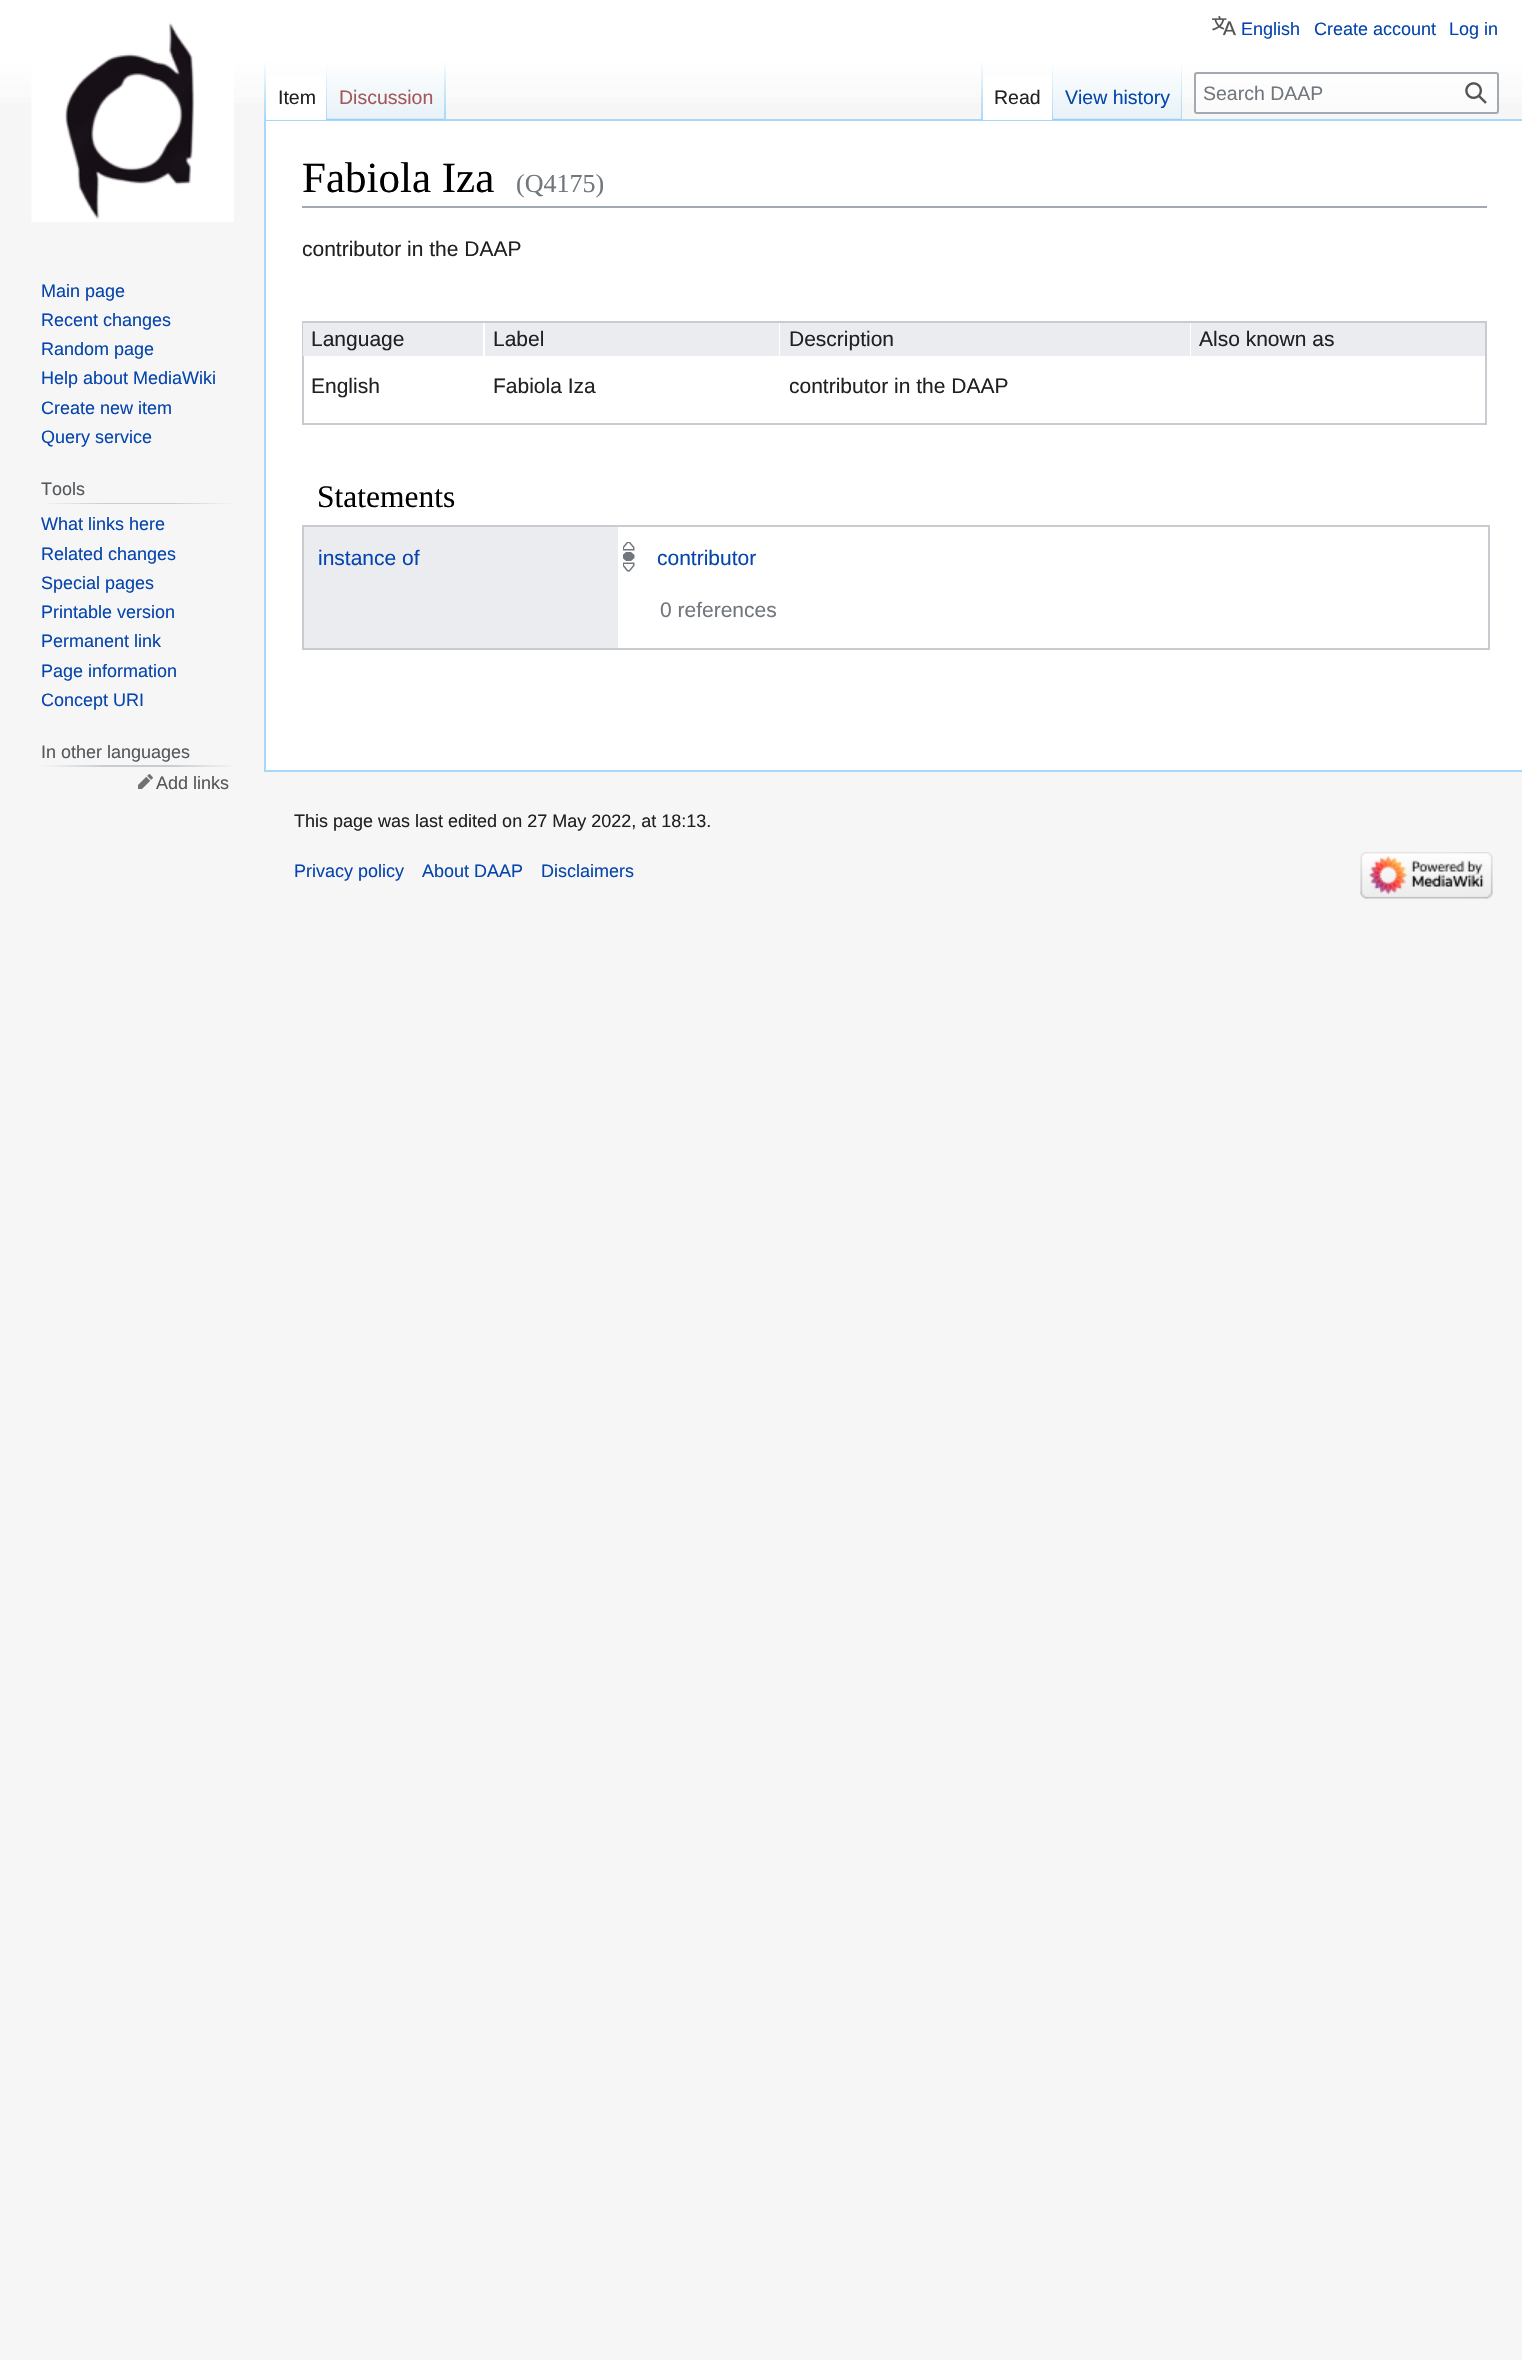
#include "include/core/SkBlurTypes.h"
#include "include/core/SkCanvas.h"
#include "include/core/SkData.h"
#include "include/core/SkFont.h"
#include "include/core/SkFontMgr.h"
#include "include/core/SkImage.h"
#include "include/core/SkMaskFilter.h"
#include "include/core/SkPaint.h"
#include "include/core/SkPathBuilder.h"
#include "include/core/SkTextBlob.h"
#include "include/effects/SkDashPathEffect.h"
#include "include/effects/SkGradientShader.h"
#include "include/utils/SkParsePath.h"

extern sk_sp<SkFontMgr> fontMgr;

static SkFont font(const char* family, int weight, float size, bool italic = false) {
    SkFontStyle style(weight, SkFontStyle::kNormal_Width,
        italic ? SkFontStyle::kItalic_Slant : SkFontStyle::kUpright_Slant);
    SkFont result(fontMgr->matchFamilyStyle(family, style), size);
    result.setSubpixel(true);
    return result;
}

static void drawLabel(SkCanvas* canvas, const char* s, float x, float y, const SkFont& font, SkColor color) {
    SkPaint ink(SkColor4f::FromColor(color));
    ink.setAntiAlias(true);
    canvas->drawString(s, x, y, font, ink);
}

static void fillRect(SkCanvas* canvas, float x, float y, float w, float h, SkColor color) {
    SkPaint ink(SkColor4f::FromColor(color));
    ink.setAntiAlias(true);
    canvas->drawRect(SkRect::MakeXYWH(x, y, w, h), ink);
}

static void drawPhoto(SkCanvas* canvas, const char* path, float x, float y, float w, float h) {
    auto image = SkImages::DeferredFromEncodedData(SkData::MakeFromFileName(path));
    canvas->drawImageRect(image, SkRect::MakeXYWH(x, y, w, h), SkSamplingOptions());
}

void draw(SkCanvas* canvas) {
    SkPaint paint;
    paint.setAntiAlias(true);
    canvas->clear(0xFFF6F6F6);
    {
        const SkColor colors[] = {0xFFFFFFFF, 0xFFF6F6F6};
        const float stops[] = {0.5f, 1};
        const SkPoint ends[] = {{761, 0}, {761, 120}};
        paint.setShader(SkGradientShader::MakeLinear(ends, colors, stops, 2, SkTileMode::kClamp));
        paint.setAlpha(255);
    }
    canvas->drawRect(SkRect::MakeXYWH(0, 0, 1522, 103), paint);
    drawPhoto(canvas, "assets/img1.png", 1212, 16, 24, 20);
    SkFont font1 = font("Liberation Sans", 400, 18);
    drawLabel(canvas, "English", 1241, 35, font1, 0xFF0645AD);
    drawLabel(canvas, "Create account", 1314, 35, font1, 0xFF0645AD);
    drawLabel(canvas, "Log in", 1449, 35, font1, 0xFF0645AD);
    fillRect(canvas, 264, 119, 1258, 2, 0xFFA7D7F9);
    fillRect(canvas, 264, 770, 1258, 2, 0xFFA7D7F9);
    fillRect(canvas, 264, 119, 2, 652, 0xFFA7D7F9);
    {
        const SkColor colors[] = {0x00A7D7F9, 0xFFA7D7F9};
        const float stops[] = {0, 1};
        const SkPoint ends[] = {{265, 60}, {265, 120}};
        paint.setShader(SkGradientShader::MakeLinear(ends, colors, stops, 2, SkTileMode::kClamp));
        paint.setAlpha(255);
    }
    canvas->drawRect(SkRect::MakeXYWH(264, 60, 2, 60), paint);
    fillRect(canvas, 266, 77, 60, 43, 0xFFFFFFFF);
    {
        const SkColor colors[] = {0xFFFFFFFF, 0xFFA7D7F9};
        const float stops[] = {0, 1};
        const SkPoint ends[] = {{326, 60}, {326, 120}};
        paint.setShader(SkGradientShader::MakeLinear(ends, colors, stops, 2, SkTileMode::kClamp));
        paint.setAlpha(255);
    }
    canvas->drawRect(SkRect::MakeXYWH(326, 60, 1, 60), paint);
    SkFont font2 = font("Liberation Sans", 400, 19.5f);
    drawLabel(canvas, "Item", 278, 104, font2, 0xFF202122);
    {
        const SkColor colors[] = {0xFF77C1F6, 0xFFE8F2F8, 0xFFFFFFFF};
        const float stops[] = {0, 0.03f, 1};
        const SkPoint ends[] = {{386, 120}, {386, 60}};
        paint.setShader(SkGradientShader::MakeLinear(ends, colors, stops, 3, SkTileMode::kClamp));
        paint.setAlpha(255);
    }
    canvas->drawRect(SkRect::MakeXYWH(327, 69, 119, 51), paint);
    {
        const SkColor colors[] = {0x00A7D7F9, 0xFFA7D7F9};
        const float stops[] = {0, 1};
        const SkPoint ends[] = {{445, 60}, {445, 120}};
        paint.setShader(SkGradientShader::MakeLinear(ends, colors, stops, 2, SkTileMode::kClamp));
        paint.setAlpha(255);
    }
    canvas->drawRect(SkRect::MakeXYWH(444, 60, 2, 60), paint);
    drawLabel(canvas, "Discussion", 339, 104, font2, 0xFFA55858);
    {
        const SkColor colors[] = {0x00A7D7F9, 0xFFA7D7F9};
        const float stops[] = {0, 1};
        const SkPoint ends[] = {{982, 60}, {982, 120}};
        paint.setShader(SkGradientShader::MakeLinear(ends, colors, stops, 2, SkTileMode::kClamp));
        paint.setAlpha(255);
    }
    canvas->drawRect(SkRect::MakeXYWH(981, 60, 2, 60), paint);
    fillRect(canvas, 983, 77, 69, 43, 0xFFFFFFFF);
    {
        const SkColor colors[] = {0xFFFFFFFF, 0xFFA7D7F9};
        const float stops[] = {0, 1};
        const SkPoint ends[] = {{1052, 60}, {1052, 120}};
        paint.setShader(SkGradientShader::MakeLinear(ends, colors, stops, 2, SkTileMode::kClamp));
        paint.setAlpha(255);
    }
    canvas->drawRect(SkRect::MakeXYWH(1052, 60, 1, 60), paint);
    drawLabel(canvas, "Read", 994, 104, font2, 0xFF202122);
    {
        const SkColor colors[] = {0xFF77C1F6, 0xFFE8F2F8, 0xFFFFFFFF};
        const float stops[] = {0, 0.03f, 1};
        const SkPoint ends[] = {{1118, 120}, {1118, 60}};
        paint.setShader(SkGradientShader::MakeLinear(ends, colors, stops, 3, SkTileMode::kClamp));
        paint.setAlpha(255);
    }
    canvas->drawRect(SkRect::MakeXYWH(1053, 69, 129, 51), paint);
    {
        const SkColor colors[] = {0x00A7D7F9, 0xFFA7D7F9};
        const float stops[] = {0, 1};
        const SkPoint ends[] = {{1181, 60}, {1181, 120}};
        paint.setShader(SkGradientShader::MakeLinear(ends, colors, stops, 2, SkTileMode::kClamp));
        paint.setAlpha(255);
    }
    canvas->drawRect(SkRect::MakeXYWH(1181, 60, 1, 60), paint);
    drawLabel(canvas, "View history", 1065, 104, font2, 0xFF0645AD);
    paint.setShader(nullptr);
    paint.setColor(0x80FFFFFF);
    canvas->drawRoundRect(SkRect::MakeXYWH(1195, 73, 303, 40), 2, 2, paint);
    paint.setStroke(true);
    paint.setStrokeWidth(2);
    paint.setColor(0xFFA2A9B1);
    canvas->drawRoundRect(SkRect::MakeXYWH(1195, 73, 303, 40), 2, 2, paint);
    drawLabel(canvas, "Search DAAP", 1203, 100, font2, 0xFF72777D);
    drawPhoto(canvas, "assets/img2.png", 1465, 82, 22, 22);
    drawPhoto(canvas, "assets/img3.png", 31, 22, 203, 200);
    drawLabel(canvas, "Main page", 41, 297, font1, 0xFF0645AD);
    drawLabel(canvas, "Recent changes", 41, 326, font1, 0xFF0645AD);
    drawLabel(canvas, "Random page", 41, 355, font1, 0xFF0645AD);
    drawLabel(canvas, "Help about MediaWiki", 41, 384, font1, 0xFF0645AD);
    drawLabel(canvas, "Create new item", 41, 414, font1, 0xFF0645AD);
    drawLabel(canvas, "Query service", 41, 443, font1, 0xFF0645AD);
    paint.setStroke(false);
    {
        const SkColor colors[] = {0xFFF6F6F6, 0xFFC8CCD1, 0xFFC8CCD1, 0xFFF6F6F6};
        const float stops[] = {0, 0.33f, 0.66f, 1};
        const SkPoint ends[] = {{41, 503}, {237, 503}};
        paint.setShader(SkGradientShader::MakeLinear(ends, colors, stops, 4, SkTileMode::kClamp));
        paint.setAlpha(255);
    }
    canvas->drawRect(SkRect::MakeXYWH(41, 503, 196, 1), paint);
    drawLabel(canvas, "Tools", 41, 495, font1, 0xFF54595D);
    drawLabel(canvas, "What links here", 41, 530, font1, 0xFF0645AD);
    drawLabel(canvas, "Related changes", 41, 560, font1, 0xFF0645AD);
    drawLabel(canvas, "Special pages", 41, 589, font1, 0xFF0645AD);
    drawLabel(canvas, "Printable version", 41, 618, font1, 0xFF0645AD);
    drawLabel(canvas, "Permanent link", 41, 647, font1, 0xFF0645AD);
    drawLabel(canvas, "Page information", 41, 677, font1, 0xFF0645AD);
    drawLabel(canvas, "Concept URI", 41, 706, font1, 0xFF0645AD);
    {
        const SkColor colors[] = {0xFFF6F6F6, 0xFFC8CCD1, 0xFFC8CCD1, 0xFFF6F6F6};
        const float stops[] = {0, 0.33f, 0.66f, 1};
        const SkPoint ends[] = {{41, 766}, {237, 766}};
        paint.setShader(SkGradientShader::MakeLinear(ends, colors, stops, 4, SkTileMode::kClamp));
        paint.setAlpha(255);
    }
    canvas->drawRect(SkRect::MakeXYWH(41, 765, 196, 2), paint);
    drawLabel(canvas, "In other languages", 41, 758, font1, 0xFF54595D);
    drawPhoto(canvas, "assets/img4.png", 138, 774, 15, 15);
    drawLabel(canvas, "Add links", 156, 789, font1, 0xFF54595D);
    fillRect(canvas, 266, 121, 1256, 649, 0xFFFFFFFF);
    fillRect(canvas, 302, 206, 1185, 2, 0xFFA2A9B1);
    SkFont font3 = font("Liberation Serif", 400, 43);
    drawLabel(canvas, "Fabiola Iza", 302, 192, font3, 0xFF000000);
    SkFont font4 = font("Liberation Serif", 400, 26);
    drawLabel(canvas, "(Q4175)", 516, 192, font4, 0xFF72777D);
    SkFont font5 = font("Liberation Sans", 400, 21);
    drawLabel(canvas, "contributor in the DAAP", 302, 256, font5, 0xFF202122);
    paint.setStroke(true);
    paint.setShader(nullptr);
    paint.setColor(0xFFC8CCD1);
    canvas->drawRect(SkRect::MakeXYWH(303, 322, 1183, 102), paint);
    fillRect(canvas, 303, 323, 180, 33, 0xFFEAECF0);
    drawLabel(canvas, "Language", 311, 346, font5, 0xFF202122);
    fillRect(canvas, 485, 323, 294, 33, 0xFFEAECF0);
    drawLabel(canvas, "Label", 493, 346, font5, 0xFF202122);
    fillRect(canvas, 780, 323, 410, 33, 0xFFEAECF0);
    drawLabel(canvas, "Description", 789, 346, font5, 0xFF202122);
    fillRect(canvas, 1191, 323, 294, 33, 0xFFEAECF0);
    drawLabel(canvas, "Also known as", 1199, 346, font5, 0xFF202122);
    drawLabel(canvas, "English", 311, 393, font5, 0xFF202122);
    drawLabel(canvas, "Fabiola Iza", 493, 393, font5, 0xFF202122);
    drawLabel(canvas, "contributor in the DAAP", 789, 393, font5, 0xFF202122);
    SkFont font6 = font("Liberation Serif", 400, 31.5f);
    drawLabel(canvas, "Statements", 317, 507, font6, 0xFF000000);
    canvas->drawRect(SkRect::MakeXYWH(303, 526, 1186, 123), paint);
    fillRect(canvas, 304, 527, 314, 121, 0xFFEAECF0);
    drawLabel(canvas, "instance of", 318, 565, font5, 0xFF0645AD);
    drawPhoto(canvas, "assets/img5.png", 623, 542, 12, 30);
    drawLabel(canvas, "contributor", 657, 565, font5, 0xFF0645AD);
    drawLabel(canvas, "0 references", 660, 617, font5, 0xFF72777D);
    drawLabel(canvas, "This page was last edited on 27 May 2022, at 18:13.", 294, 827, font1, 0xFF202122);
    drawLabel(canvas, "Privacy policy", 294, 877, font1, 0xFF0645AD);
    drawLabel(canvas, "About DAAP", 422, 877, font1, 0xFF0645AD);
    drawLabel(canvas, "Disclaimers", 541, 877, font1, 0xFF0645AD);
    drawPhoto(canvas, "assets/img6.png", 1360, 852, 133, 47);
}
